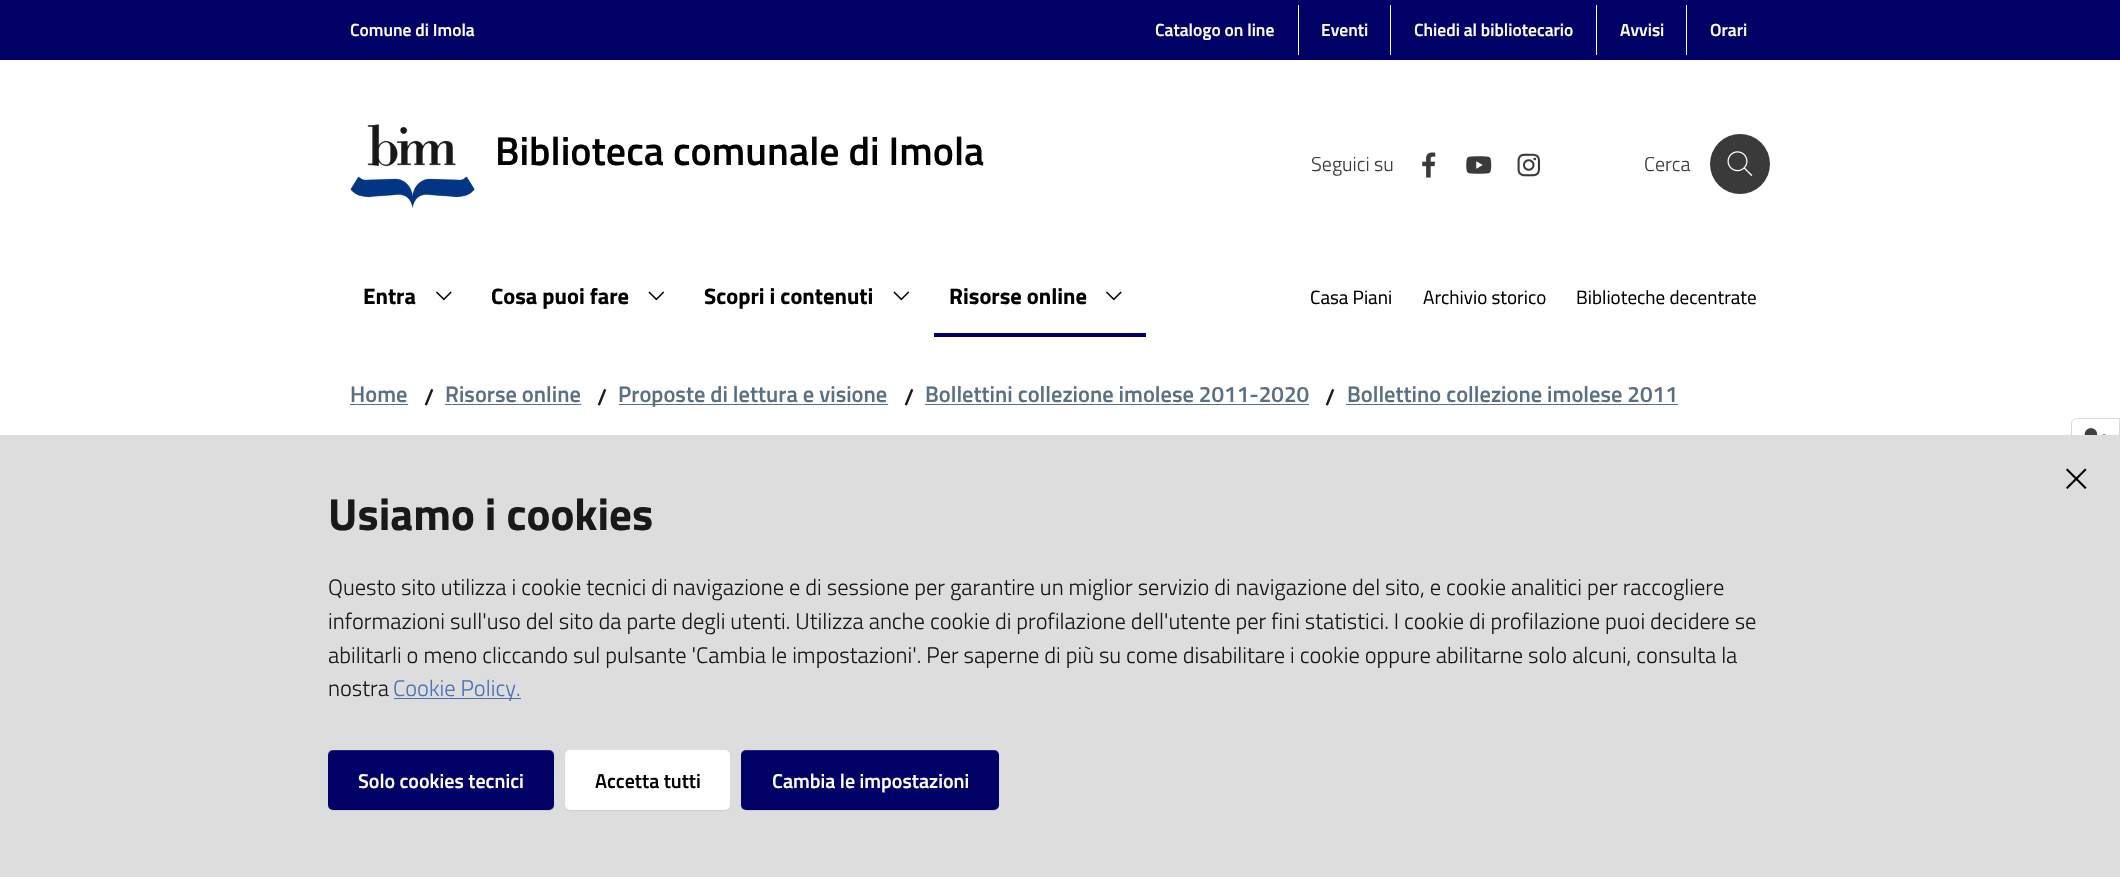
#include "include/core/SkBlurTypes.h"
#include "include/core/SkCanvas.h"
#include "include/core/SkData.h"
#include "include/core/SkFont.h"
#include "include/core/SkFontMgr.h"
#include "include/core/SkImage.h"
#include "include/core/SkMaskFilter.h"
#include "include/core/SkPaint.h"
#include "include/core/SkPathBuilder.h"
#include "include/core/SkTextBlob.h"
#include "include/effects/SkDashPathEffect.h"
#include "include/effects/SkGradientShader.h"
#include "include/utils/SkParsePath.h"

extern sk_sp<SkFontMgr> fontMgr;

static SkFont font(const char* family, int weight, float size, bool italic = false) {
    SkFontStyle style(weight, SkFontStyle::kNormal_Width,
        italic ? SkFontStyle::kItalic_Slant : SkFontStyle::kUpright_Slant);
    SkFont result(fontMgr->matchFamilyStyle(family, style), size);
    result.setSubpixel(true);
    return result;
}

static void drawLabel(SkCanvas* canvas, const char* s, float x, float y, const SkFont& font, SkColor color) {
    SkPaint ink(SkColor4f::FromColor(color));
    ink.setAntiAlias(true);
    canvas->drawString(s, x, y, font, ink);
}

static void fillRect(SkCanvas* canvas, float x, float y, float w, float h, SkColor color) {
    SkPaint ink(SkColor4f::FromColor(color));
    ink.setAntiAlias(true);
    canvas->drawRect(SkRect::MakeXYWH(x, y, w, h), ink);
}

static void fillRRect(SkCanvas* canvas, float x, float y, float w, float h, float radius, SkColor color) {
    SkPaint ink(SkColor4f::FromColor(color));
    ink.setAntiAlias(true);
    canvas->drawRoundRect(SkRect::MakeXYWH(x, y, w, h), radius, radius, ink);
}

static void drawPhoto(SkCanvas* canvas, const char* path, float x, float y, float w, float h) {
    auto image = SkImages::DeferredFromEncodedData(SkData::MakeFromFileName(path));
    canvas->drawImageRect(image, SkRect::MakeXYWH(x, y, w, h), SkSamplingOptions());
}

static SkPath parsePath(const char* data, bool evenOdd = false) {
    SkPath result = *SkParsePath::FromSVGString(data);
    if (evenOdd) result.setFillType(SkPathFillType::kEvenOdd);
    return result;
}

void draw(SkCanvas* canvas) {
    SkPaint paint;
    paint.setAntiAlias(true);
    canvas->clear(0xFFFFFFFF);
    fillRect(canvas, 0, 0, 2120, 60, 0xFF000066);
    SkFont font1 = font("Titillium Web", 600, 17.5f);
    drawLabel(canvas, "Comune di Imola", 350, 36, font1, 0xFFFFFFFF);
    fillRect(canvas, 1298, 5, 1, 50, 0xFFFFFFFF);
    drawLabel(canvas, "Catalogo on line", 1155, 36, font1, 0xFFFFFFFF);
    fillRect(canvas, 1390, 5, 1, 50, 0xFFFFFFFF);
    drawLabel(canvas, "Eventi", 1321, 36, font1, 0xFFFFFFFF);
    fillRect(canvas, 1596, 5, 1, 50, 0xFFFFFFFF);
    drawLabel(canvas, "Chiedi al bibliotecario", 1414, 36, font1, 0xFFFFFFFF);
    fillRect(canvas, 1686, 5, 1, 50, 0xFFFFFFFF);
    drawLabel(canvas, "Avvisi", 1620, 36, font1, 0xFFFFFFFF);
    drawLabel(canvas, "Orari", 1710, 36, font1, 0xFFFFFFFF);
    drawPhoto(canvas, "assets/img1.png", 350, 124, 125, 84);
    SkFont font2 = font("Titillium Web", 600, 40);
    drawLabel(canvas, "Biblioteca comunale di Imola", 495, 165, font2, 0xFF000000);
    SkFont font3 = font("Titillium Web", 300, 20);
    drawLabel(canvas, "Seguici su", 1311, 171, font3, 0xFF3A3A3A);
    drawPhoto(canvas, "assets/img2.png", 1422, 152, 14, 26);
    drawPhoto(canvas, "assets/img3.png", 1466, 156, 26, 18);
    drawPhoto(canvas, "assets/img4.png", 1517, 153, 24, 24);
    drawLabel(canvas, "Cerca", 1644, 171, font3, 0xFF3A3A3A);
    paint.setColor(0xFF3A3A3A);
    canvas->drawCircle(1740, 164, 30, paint);
    drawPhoto(canvas, "assets/img5.png", 1727, 151, 26, 25);
    SkFont font4 = font("Titillium Web", 700, 22.5f);
    drawLabel(canvas, "Entra", 363, 304, font4, 0xFF000000);
    drawPhoto(canvas, "assets/img6.png", 436, 291, 16, 10);
    drawLabel(canvas, "Cosa puoi fare", 491, 304, font4, 0xFF000000);
    drawPhoto(canvas, "assets/img7.png", 648, 291, 17, 10);
    drawLabel(canvas, "Scopri i contenuti", 704, 304, font4, 0xFF000000);
    drawPhoto(canvas, "assets/img7.png", 893, 291, 17, 10);
    fillRect(canvas, 934, 333, 212, 4, 0xFF000066);
    drawLabel(canvas, "Risorse online", 949, 304, font4, 0xFF000000);
    drawPhoto(canvas, "assets/img6.png", 1106, 291, 16, 10);
    SkFont font5 = font("Titillium Web", 400, 19.1f);
    drawLabel(canvas, "Casa Piani", 1310, 304, font5, 0xFF000000);
    drawLabel(canvas, "Archivio storico", 1423, 304, font5, 0xFF000000);
    drawLabel(canvas, "Biblioteche decentrate", 1576, 304, font5, 0xFF000000);
    SkFont font6 = font("Titillium Web", 600, 22.5f);
    drawLabel(canvas, "Home", 350, 402, font6, 0xFF5B6F82);
    fillRect(canvas, 350, 404, 58, 1, 0xFF5B6F82);
    drawLabel(canvas, "/", 424, 405, font6, 0xFF191919);
    drawLabel(canvas, "Risorse online", 445, 402, font6, 0xFF5B6F82);
    fillRect(canvas, 445, 404, 136, 1, 0xFF5B6F82);
    drawLabel(canvas, "/", 597, 405, font6, 0xFF191919);
    fillRect(canvas, 619, 404, 269, 1, 0xFF5B6F82);
    drawLabel(canvas, "Proposte di lettura e visione", 618, 402, font6, 0xFF5B6F82);
    drawLabel(canvas, "/", 904, 405, font6, 0xFF191919);
    drawLabel(canvas, "Bollettini collezione imolese 2011-2020", 925, 402, font6, 0xFF5B6F82);
    fillRect(canvas, 925, 404, 384, 1, 0xFF5B6F82);
    drawLabel(canvas, "/", 1325, 405, font6, 0xFF191919);
    drawLabel(canvas, "Bollettino collezione imolese 2011", 1347, 402, font6, 0xFF5B6F82);
    fillRect(canvas, 1346, 404, 332, 1, 0xFF5B6F82);
    paint.setStroke(true);
    paint.setStrokeWidth(1);
    paint.setColor(0xFFD9D9D9);
    canvas->drawPath(parsePath("M2077 418.5H2119.5V462.5H2077C2074 462.5 2071.5 460 2071.5 457V424C2071.5 421 2074 418.5 2077 418.5Z"), paint);
    drawPhoto(canvas, "assets/img8.png", 2084, 428, 22, 7);
    fillRect(canvas, 0, 435, 2120, 442, 0xFFDDDDDD);
    drawPhoto(canvas, "assets/img9.png", 2066, 468, 21, 21);
    SkFont font7 = font("Titillium Web", 700, 45);
    drawLabel(canvas, "Usiamo i cookies", 328, 530, font7, 0xFF191919);
    SkFont font8 = font("Titillium Web", 300, 22.5f);
    drawLabel(canvas, "Questo sito utilizza i cookie tecnici di navigazione e di sessione per garantire un miglior servizio di navigazione del sito, e cookie analitici per raccogliere", 328, 595, font8, 0xFF191919);
    drawLabel(canvas, "informazioni sull'uso del sito da parte degli utenti. Utilizza anche cookie di profilazione dell'utente per fini statistici. I cookie di profilazione puoi decidere se", 328, 629, font8, 0xFF191919);
    drawLabel(canvas, "abilitarli o meno cliccando sul pulsante 'Cambia le impostazioni'. Per saperne di più su come disabilitare i cookie oppure abilitarne solo alcuni, consulta la", 328, 663, font8, 0xFF191919);
    drawLabel(canvas, "nostra", 328, 696, font8, 0xFF191919);
    fillRect(canvas, 394, 698, 127, 1, 0xFF4B71B3);
    drawLabel(canvas, "Cookie Policy.", 393, 696, font8, 0xFF4B71B3);
    paint.setStroke(false);
    paint.setColor(0x12000000);
    paint.setMaskFilter(SkMaskFilter::MakeBlur(kNormal_SkBlurStyle, 0.5f));
    canvas->drawRoundRect(SkRect::MakeXYWH(328, 751, 226, 60), 5, 5, paint);
    paint.setMaskFilter(nullptr);
    fillRRect(canvas, 328, 750, 226, 60, 5, 0xFF000066);
    paint.setColor(0x26FFFFFF);
    canvas->drawPath(parsePath("M332 751H549C552 751 554 753 554 756V755C554 752 552 750 549 750H333C330 750 328 752 328 755V756C328 753 330 751 332 751Z"), paint);
    SkFont font9 = font("Titillium Web", 600, 20);
    drawLabel(canvas, "Solo cookies tecnici", 358, 788, font9, 0xFFFFFFFF);
    paint.setColor(0x12000000);
    paint.setMaskFilter(SkMaskFilter::MakeBlur(kNormal_SkBlurStyle, 0.5f));
    canvas->drawRoundRect(SkRect::MakeXYWH(565, 751, 165, 60), 5, 5, paint);
    paint.setMaskFilter(nullptr);
    fillRRect(canvas, 565, 750, 165, 60, 5, 0xFFFFFFFF);
    drawLabel(canvas, "Accetta tutti", 595, 788, font9, 0xFF000000);
    paint.setMaskFilter(SkMaskFilter::MakeBlur(kNormal_SkBlurStyle, 0.5f));
    canvas->drawRoundRect(SkRect::MakeXYWH(741, 751, 258, 60), 5, 5, paint);
    paint.setMaskFilter(nullptr);
    fillRRect(canvas, 741, 750, 258, 60, 5, 0xFF000066);
    paint.setColor(0x26FFFFFF);
    canvas->drawPath(parsePath("M746 751H994C997 751 999 753 999 756C999 753 997 750 994 750H746C743 750 741 753 741 756C741 753 743 751 746 751Z"), paint);
    drawLabel(canvas, "Cambia le impostazioni", 772, 788, font9, 0xFFFFFFFF);
}
